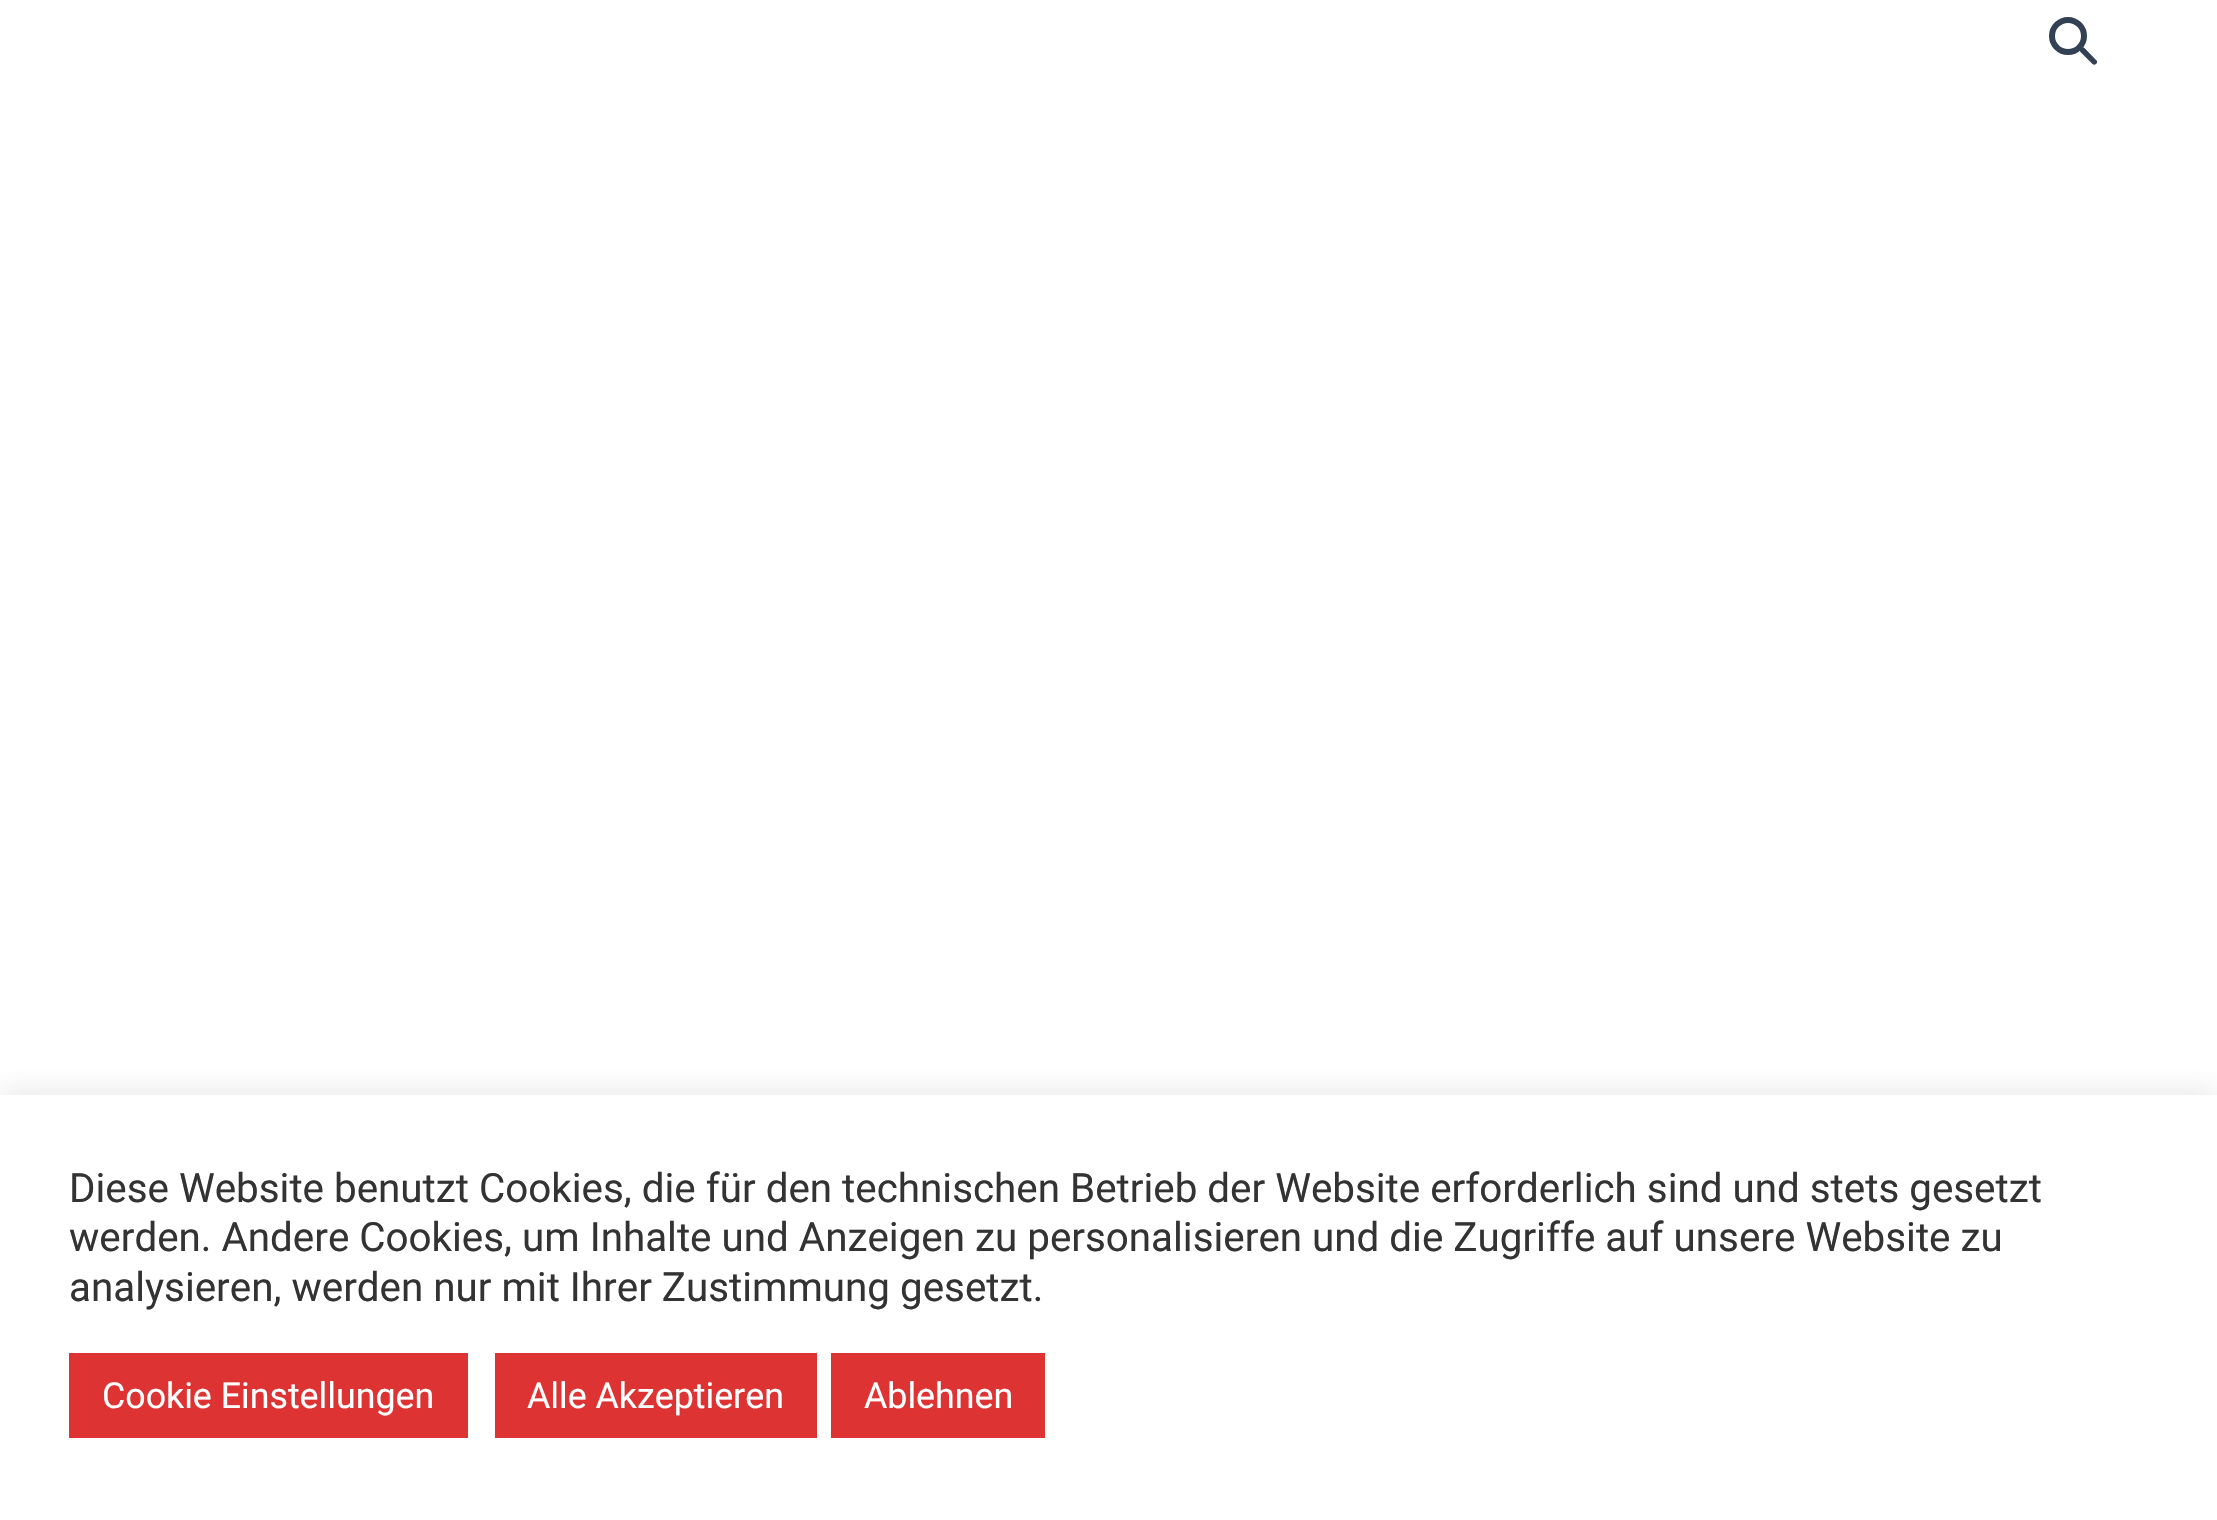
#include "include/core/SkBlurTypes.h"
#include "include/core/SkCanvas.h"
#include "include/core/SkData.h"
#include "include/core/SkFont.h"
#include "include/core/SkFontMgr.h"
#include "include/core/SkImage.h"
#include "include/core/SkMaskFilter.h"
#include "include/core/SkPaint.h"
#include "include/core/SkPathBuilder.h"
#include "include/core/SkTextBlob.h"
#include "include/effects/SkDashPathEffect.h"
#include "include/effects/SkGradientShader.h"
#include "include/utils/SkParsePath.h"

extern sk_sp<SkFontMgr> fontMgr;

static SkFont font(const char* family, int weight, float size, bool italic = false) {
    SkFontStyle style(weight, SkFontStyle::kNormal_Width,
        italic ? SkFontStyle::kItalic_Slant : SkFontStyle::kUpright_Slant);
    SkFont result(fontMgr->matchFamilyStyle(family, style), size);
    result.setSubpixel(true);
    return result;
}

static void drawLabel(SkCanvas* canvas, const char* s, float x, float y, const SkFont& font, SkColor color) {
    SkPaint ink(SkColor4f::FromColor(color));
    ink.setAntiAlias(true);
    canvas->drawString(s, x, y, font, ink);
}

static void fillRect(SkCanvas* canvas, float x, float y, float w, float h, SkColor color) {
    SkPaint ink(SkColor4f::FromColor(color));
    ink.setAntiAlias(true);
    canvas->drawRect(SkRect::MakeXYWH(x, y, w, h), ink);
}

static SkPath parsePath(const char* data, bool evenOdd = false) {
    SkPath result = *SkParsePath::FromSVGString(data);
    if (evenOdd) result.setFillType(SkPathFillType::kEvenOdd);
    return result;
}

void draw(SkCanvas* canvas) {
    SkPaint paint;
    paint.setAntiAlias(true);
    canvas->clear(0xFFFFFFFF);
    paint.setStroke(true);
    paint.setStrokeWidth(6);
    paint.setColor(0xFF334155);
    canvas->drawCircle(2068, 36, 16, paint);
    paint.setStroke(false);
    canvas->drawPath(parsePath("M2080.5 48C2081.5 47 2083.5 47 2084.5 48L2096 60C2097.5 61 2097.5 62.5 2096 64C2095 65 2093.5 65 2092.5 64L2080.5 52C2079.5 51 2079.5 49.5 2080.5 48Z"), paint);
    canvas->save();
    canvas->clipRect(SkRect::MakeXYWH(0, 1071, 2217, 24));
    paint.setColor(0x4DACABAB);
    paint.setMaskFilter(SkMaskFilter::MakeBlur(kNormal_SkBlurStyle, 14));
    canvas->drawRect(SkRect::MakeXYWH(0, 1092, 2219, 426), paint);
    paint.setMaskFilter(nullptr);
    canvas->restore();
    SkFont font1 = font("Roboto", 400, 40.35f);
    drawLabel(canvas, "Diese Website benutzt Cookies, die für den technischen Betrieb der Website erforderlich sind und stets gesetzt", 69, 1202, font1, 0xFF333333);
    drawLabel(canvas, "werden. Andere Cookies, um Inhalte und Anzeigen zu personalisieren und die Zugriffe auf unsere Website zu", 69, 1251, font1, 0xFF333333);
    drawLabel(canvas, "analysieren, werden nur mit Ihrer Zustimmung gesetzt.", 69, 1301, font1, 0xFF333333);
    fillRect(canvas, 69, 1353, 399, 85, 0xFFDD3333);
    SkFont font2 = font("Roboto", 400, 35.75f);
    drawLabel(canvas, "Cookie Einstellungen", 102, 1408, font2, 0xFFFFFFFF);
    fillRect(canvas, 495, 1353, 322, 85, 0xFFDD3333);
    drawLabel(canvas, "Alle Akzeptieren", 527, 1408, font2, 0xFFFFFFFF);
    fillRect(canvas, 831, 1353, 214, 85, 0xFFDD3333);
    drawLabel(canvas, "Ablehnen", 864, 1408, font2, 0xFFFFFFFF);
}
